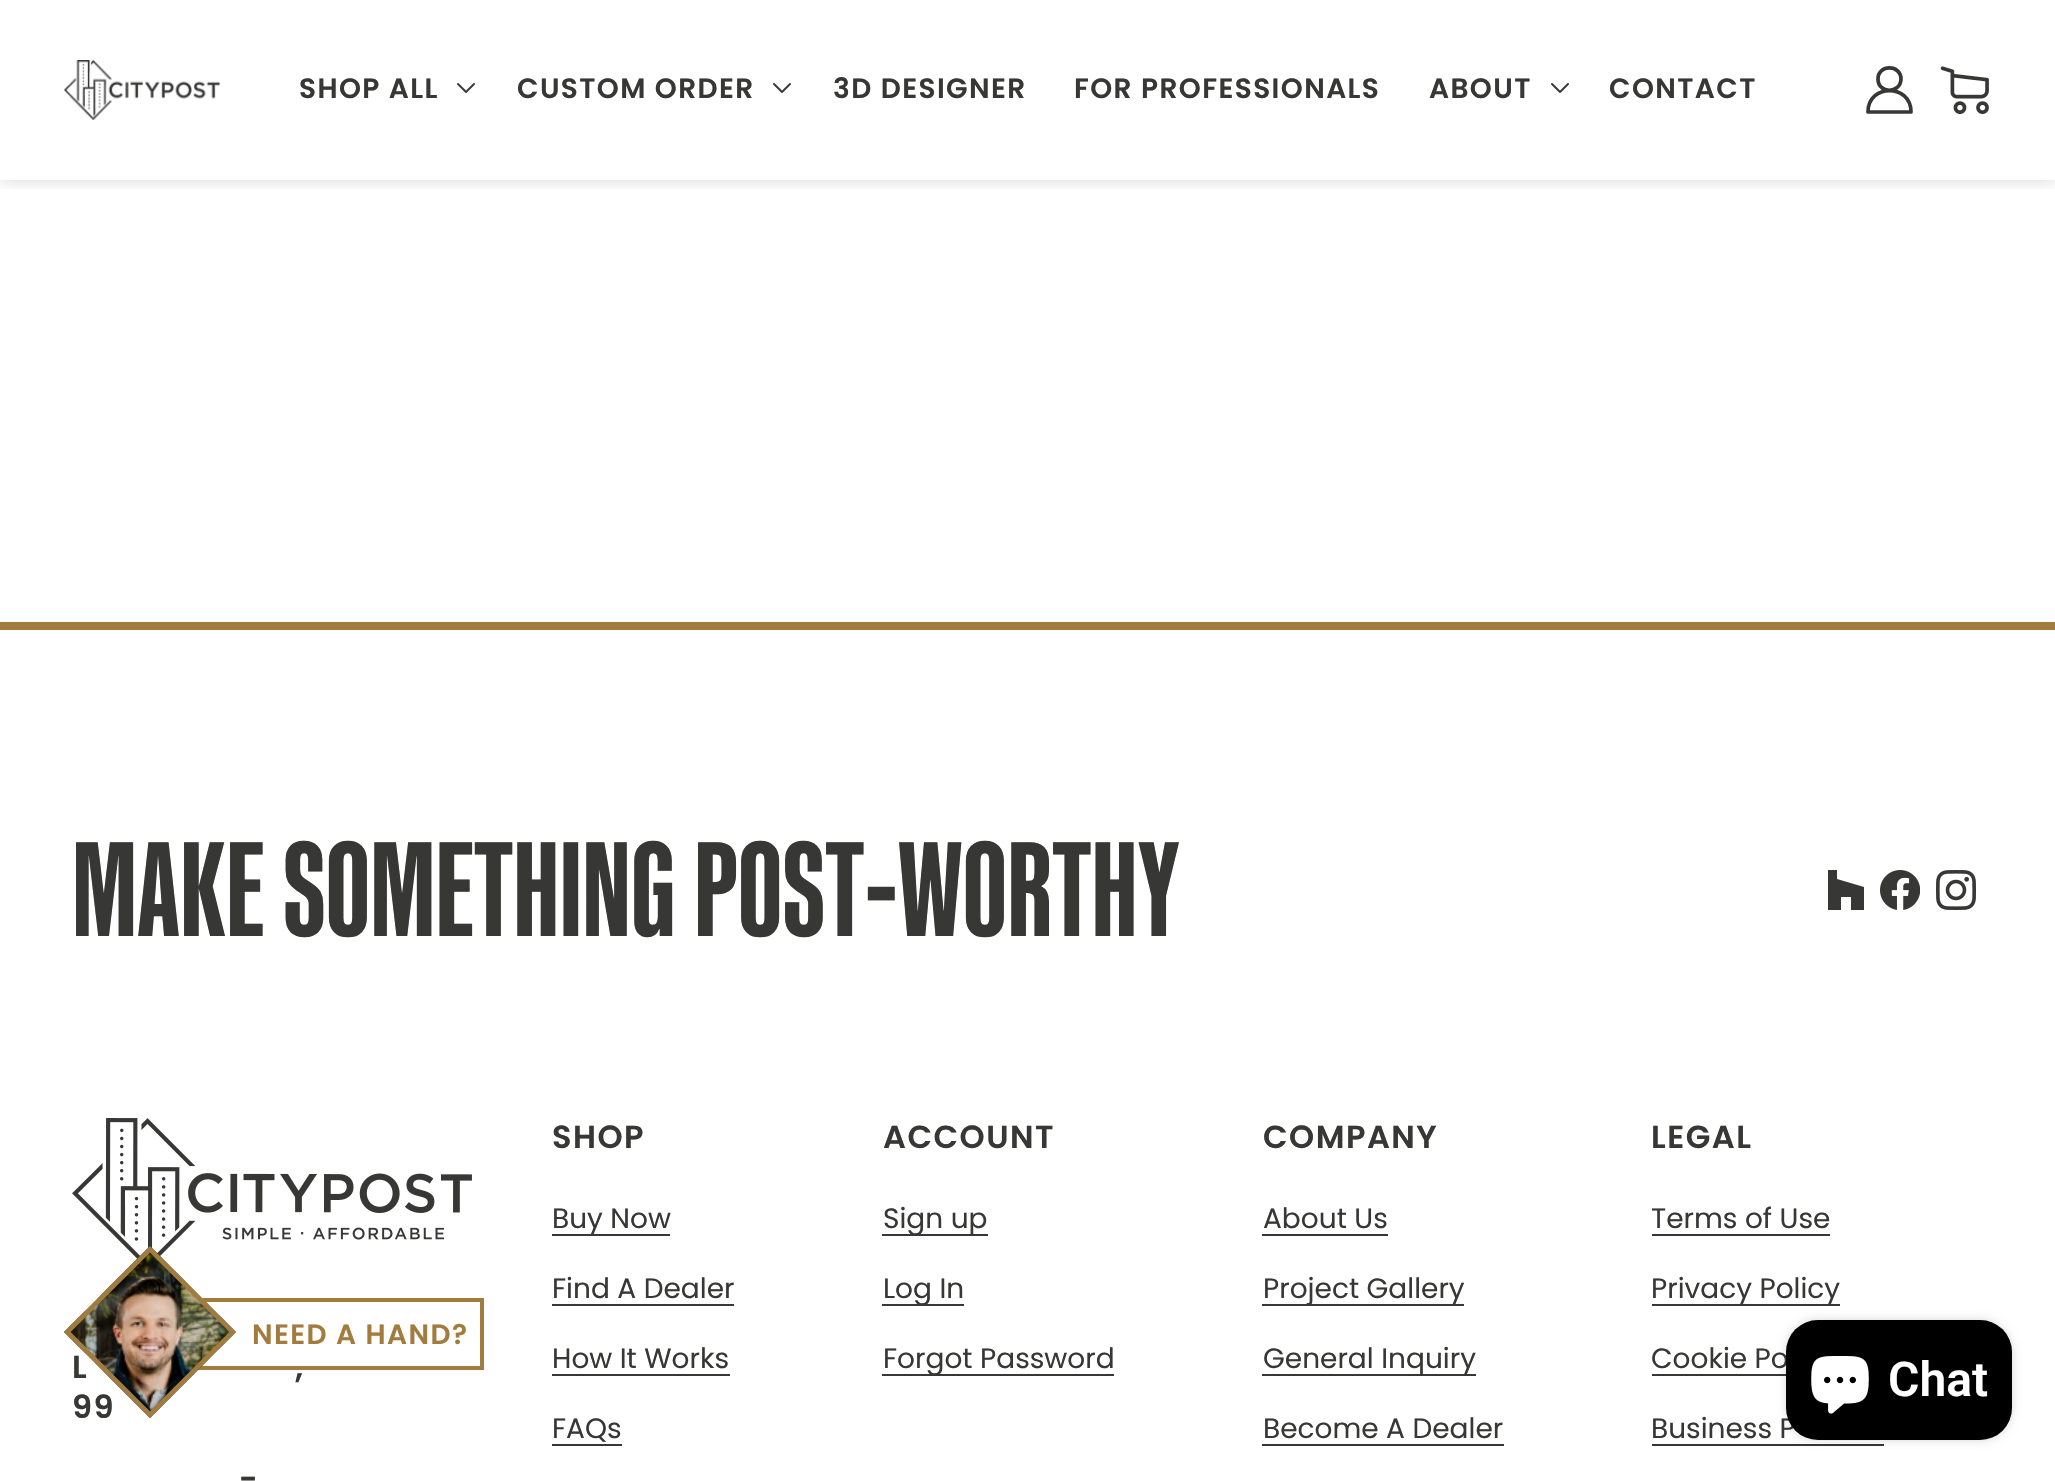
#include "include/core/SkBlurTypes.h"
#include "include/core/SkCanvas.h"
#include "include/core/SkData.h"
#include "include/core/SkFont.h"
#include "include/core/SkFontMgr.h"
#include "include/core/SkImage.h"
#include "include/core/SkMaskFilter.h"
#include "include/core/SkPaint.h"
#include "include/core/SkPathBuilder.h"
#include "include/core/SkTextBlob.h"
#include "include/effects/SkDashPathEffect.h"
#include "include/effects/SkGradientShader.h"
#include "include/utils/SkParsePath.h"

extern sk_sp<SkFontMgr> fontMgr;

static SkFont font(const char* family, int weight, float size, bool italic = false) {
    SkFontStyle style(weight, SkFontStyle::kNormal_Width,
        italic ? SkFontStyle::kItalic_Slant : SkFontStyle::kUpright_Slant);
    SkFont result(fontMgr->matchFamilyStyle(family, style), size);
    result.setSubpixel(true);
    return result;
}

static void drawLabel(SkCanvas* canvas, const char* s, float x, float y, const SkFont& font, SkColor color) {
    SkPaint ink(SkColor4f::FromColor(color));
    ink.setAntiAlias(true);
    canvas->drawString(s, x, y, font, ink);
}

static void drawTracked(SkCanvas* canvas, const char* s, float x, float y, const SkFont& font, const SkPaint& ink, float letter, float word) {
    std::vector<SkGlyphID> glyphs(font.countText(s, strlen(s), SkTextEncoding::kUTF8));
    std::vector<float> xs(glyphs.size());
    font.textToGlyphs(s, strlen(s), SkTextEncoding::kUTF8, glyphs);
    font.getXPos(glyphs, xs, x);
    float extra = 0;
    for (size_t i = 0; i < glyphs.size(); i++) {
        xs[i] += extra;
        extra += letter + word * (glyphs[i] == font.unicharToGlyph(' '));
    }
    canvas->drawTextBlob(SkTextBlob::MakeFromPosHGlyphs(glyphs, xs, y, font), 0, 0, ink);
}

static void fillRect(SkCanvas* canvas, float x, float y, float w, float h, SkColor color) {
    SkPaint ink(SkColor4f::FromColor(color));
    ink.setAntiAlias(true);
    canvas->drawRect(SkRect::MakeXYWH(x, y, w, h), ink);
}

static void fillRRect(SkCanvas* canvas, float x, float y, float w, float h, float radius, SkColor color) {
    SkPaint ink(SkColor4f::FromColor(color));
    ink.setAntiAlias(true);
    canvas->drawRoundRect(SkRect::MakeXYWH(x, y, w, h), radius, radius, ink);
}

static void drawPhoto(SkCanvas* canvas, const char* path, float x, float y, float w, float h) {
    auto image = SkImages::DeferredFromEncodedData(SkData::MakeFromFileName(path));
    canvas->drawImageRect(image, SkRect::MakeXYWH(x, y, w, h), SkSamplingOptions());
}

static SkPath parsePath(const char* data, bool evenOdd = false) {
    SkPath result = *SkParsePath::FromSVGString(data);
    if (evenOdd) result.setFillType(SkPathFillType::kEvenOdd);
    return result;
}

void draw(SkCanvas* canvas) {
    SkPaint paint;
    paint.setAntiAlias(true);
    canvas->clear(0xFFFFFFFF);
    canvas->save();
    canvas->clipRect(SkRect::MakeXYWH(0, 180, 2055, 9));
    paint.setColor(0x29000000);
    paint.setMaskFilter(SkMaskFilter::MakeBlur(kNormal_SkBlurStyle, 8));
    canvas->drawRect(SkRect::MakeXYWH(0, 0, 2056, 180), paint);
    paint.setMaskFilter(nullptr);
    canvas->restore();
    drawPhoto(canvas, "assets/img1.png", 64, 60, 157, 60);
    SkFont font1 = font("Poppins", 600, 28);
    paint.setColor(0xFF373736);
    drawTracked(canvas, "SHOP ALL", 299, 98, font1, paint, 1.4f, 0);
    drawPhoto(canvas, "assets/img2.png", 457, 83, 18, 10);
    drawTracked(canvas, "CUSTOM ORDER", 517, 98, font1, paint, 1.4f, 0);
    drawPhoto(canvas, "assets/img2.png", 773, 83, 18, 10);
    drawTracked(canvas, "3D DESIGNER", 833, 98, font1, paint, 1.4f, 0);
    drawTracked(canvas, "FOR PROFESSIONALS", 1074, 98, font1, paint, 1.4f, 0);
    drawTracked(canvas, "ABOUT", 1429, 98, font1, paint, 1.4f, 0);
    drawPhoto(canvas, "assets/img2.png", 1551, 83, 18, 10);
    drawTracked(canvas, "CONTACT", 1609, 98, font1, paint, 1.4f, 0);
    paint.setStroke(true);
    paint.setStrokeWidth(3.7f);
    paint.setStrokeCap(SkPaint::kRound_Cap);
    paint.setStrokeJoin(SkPaint::kRound_Join);
    canvas->drawPath(parsePath("M1868 112C1868 83.5 1911 83.5 1911 112ZM1901 79C1900.5 94 1878 94 1878 79C1878 64 1901 64.5 1901 79Z"), paint);
    drawPhoto(canvas, "assets/img3.png", 1940, 66, 49, 48);
    fillRect(canvas, 0, 622, 2055, 8, 0xFFA27C3F);
    SkFont font2 = font("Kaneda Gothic", 700, 136);
    drawLabel(canvas, "MAKE SOMETHING POST-WORTHY", 72, 936, font2, 0xFF373736);
    paint.setStroke(false);
    canvas->drawPath(parsePath("M1851 910H1864V887L1837 879V870H1828V910H1841V897H1851Z"), paint);
    drawPhoto(canvas, "assets/img4.png", 1880, 870, 40, 40);
    drawPhoto(canvas, "assets/img5.png", 1936, 870, 40, 40);
    drawPhoto(canvas, "assets/img6.png", 72, 1118, 400, 141);
    SkFont font3 = font("Poppins", 600, 32);
    drawTracked(canvas, "L", 72, 1378, font3, paint, 1.5f, 0);
    drawTracked(canvas, ",", 295, 1378, font3, paint, 1.5f, 0);
    drawTracked(canvas, "99", 72, 1418, font3, paint, 1.5f, 0);
    drawTracked(canvas, "-", 239, 1490, font3, paint, 1.5f, 0);
    drawTracked(canvas, "SHOP", 552, 1148, font3, paint, 1.5f, 0);
    fillRect(canvas, 552, 1234, 118, 2, 0xFF373736);
    SkFont font4 = font("Poppins", 400, 28);
    drawLabel(canvas, "Buy Now", 552, 1228, font4, 0xFF373736);
    drawLabel(canvas, "Find A Dealer", 552, 1298, font4, 0xFF373736);
    fillRect(canvas, 552, 1304, 182, 2, 0xFF373736);
    drawLabel(canvas, "How It Works", 552, 1368, font4, 0xFF373736);
    fillRect(canvas, 552, 1374, 178, 2, 0xFF373736);
    drawLabel(canvas, "FAQs", 552, 1438, font4, 0xFF373736);
    fillRect(canvas, 552, 1444, 70, 2, 0xFF373736);
    drawTracked(canvas, "ACCOUNT", 883, 1148, font3, paint, 1.5f, 0);
    fillRect(canvas, 882, 1234, 106, 2, 0xFF373736);
    drawLabel(canvas, "Sign up", 883, 1228, font4, 0xFF373736);
    fillRect(canvas, 882, 1304, 82, 2, 0xFF373736);
    drawLabel(canvas, "Log In", 883, 1298, font4, 0xFF373736);
    fillRect(canvas, 882, 1374, 232, 2, 0xFF373736);
    drawLabel(canvas, "Forgot Password", 883, 1368, font4, 0xFF373736);
    drawTracked(canvas, "COMPANY", 1263, 1148, font3, paint, 1.5f, 0);
    drawLabel(canvas, "About Us", 1263, 1228, font4, 0xFF373736);
    fillRect(canvas, 1262, 1234, 126, 2, 0xFF373736);
    fillRect(canvas, 1262, 1304, 202, 2, 0xFF373736);
    drawLabel(canvas, "Project Gallery", 1263, 1298, font4, 0xFF373736);
    fillRect(canvas, 1262, 1374, 214, 2, 0xFF373736);
    drawLabel(canvas, "General Inquiry", 1263, 1368, font4, 0xFF373736);
    drawLabel(canvas, "Become A Dealer", 1263, 1438, font4, 0xFF373736);
    fillRect(canvas, 1262, 1444, 242, 2, 0xFF373736);
    drawTracked(canvas, "LEGAL", 1651, 1148, font3, paint, 1.5f, 0);
    drawLabel(canvas, "Terms of Use", 1651, 1228, font4, 0xFF373736);
    fillRect(canvas, 1652, 1234, 178, 2, 0xFF373736);
    fillRect(canvas, 1652, 1304, 188, 2, 0xFF373736);
    drawLabel(canvas, "Privacy Policy", 1651, 1298, font4, 0xFF373736);
    drawLabel(canvas, "Cookie Po", 1651, 1368, font4, 0xFF373736);
    fillRect(canvas, 1652, 1374, 134, 2, 0xFF373736);
    drawLabel(canvas, "Business P", 1651, 1438, font4, 0xFF373736);
    fillRect(canvas, 1652, 1444, 232, 2, 0xFF373736);
    paint.setStroke(true);
    paint.setStrokeWidth(4);
    paint.setStrokeCap(SkPaint::kButt_Cap);
    paint.setStrokeJoin(SkPaint::kMiter_Join);
    paint.setColor(0xFFA27C3F);
    canvas->drawRect(SkRect::MakeXYWH(106, 1300, 376, 68), paint);
    drawPhoto(canvas, "assets/img7.png", 64, 1246, 172, 172);
    canvas->save();
    canvas->clipPath(parsePath("M64 1332L150 1418L236 1332L150 1246Z"), true);
    paint.setStrokeWidth(6);
    canvas->drawPath(parsePath("M150 1248.5L233.5 1332L150 1415.5L66.5 1332Z"), paint);
    canvas->restore();
    paint.setStroke(false);
    drawTracked(canvas, "NEED A HAND?", 252, 1344, font1, paint, 1.4f, 0);
    paint.setColor(0x26000000);
    paint.setMaskFilter(SkMaskFilter::MakeBlur(kNormal_SkBlurStyle, 5));
    canvas->drawRoundRect(SkRect::MakeXYWH(1786, 1320, 226, 120), 32, 32, paint);
    paint.setMaskFilter(nullptr);
    fillRRect(canvas, 1786, 1320, 226, 120, 32, 0xFF000000);
    drawPhoto(canvas, "assets/img8.png", 1811, 1356, 58, 58);
    SkFont font5 = font("Roboto", 600, 48);
    drawLabel(canvas, "Chat", 1888, 1396, font5, 0xFFFFFFFF);
}
